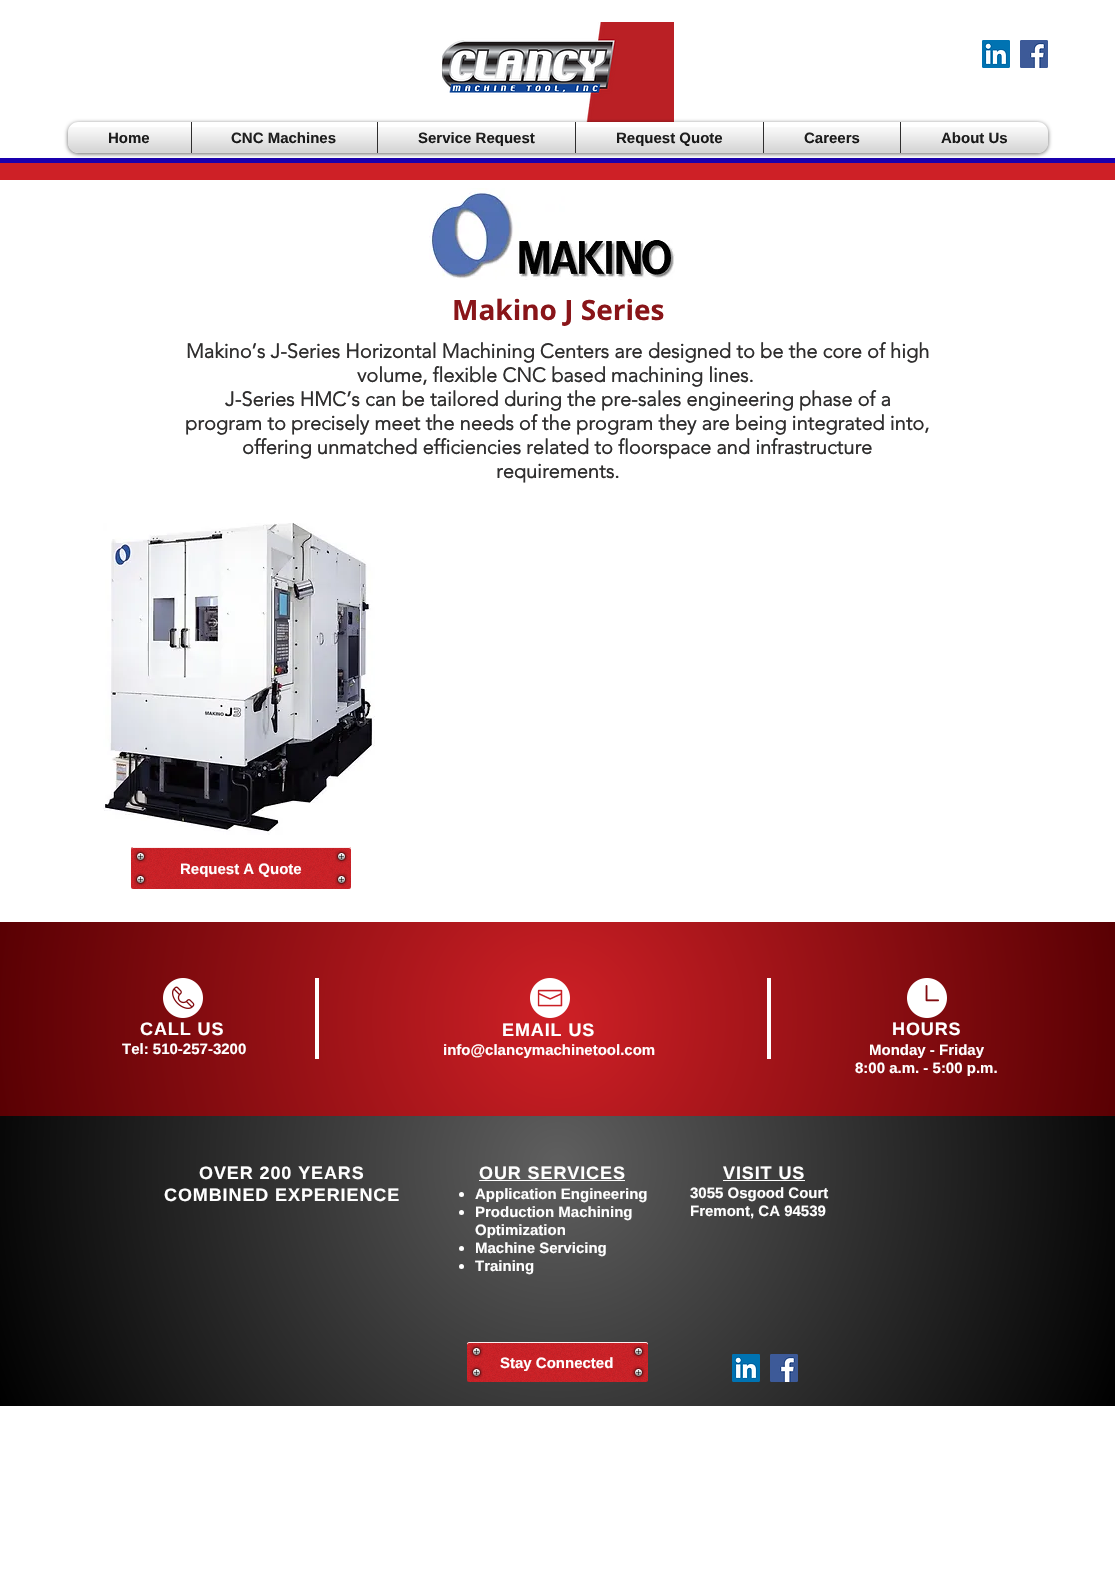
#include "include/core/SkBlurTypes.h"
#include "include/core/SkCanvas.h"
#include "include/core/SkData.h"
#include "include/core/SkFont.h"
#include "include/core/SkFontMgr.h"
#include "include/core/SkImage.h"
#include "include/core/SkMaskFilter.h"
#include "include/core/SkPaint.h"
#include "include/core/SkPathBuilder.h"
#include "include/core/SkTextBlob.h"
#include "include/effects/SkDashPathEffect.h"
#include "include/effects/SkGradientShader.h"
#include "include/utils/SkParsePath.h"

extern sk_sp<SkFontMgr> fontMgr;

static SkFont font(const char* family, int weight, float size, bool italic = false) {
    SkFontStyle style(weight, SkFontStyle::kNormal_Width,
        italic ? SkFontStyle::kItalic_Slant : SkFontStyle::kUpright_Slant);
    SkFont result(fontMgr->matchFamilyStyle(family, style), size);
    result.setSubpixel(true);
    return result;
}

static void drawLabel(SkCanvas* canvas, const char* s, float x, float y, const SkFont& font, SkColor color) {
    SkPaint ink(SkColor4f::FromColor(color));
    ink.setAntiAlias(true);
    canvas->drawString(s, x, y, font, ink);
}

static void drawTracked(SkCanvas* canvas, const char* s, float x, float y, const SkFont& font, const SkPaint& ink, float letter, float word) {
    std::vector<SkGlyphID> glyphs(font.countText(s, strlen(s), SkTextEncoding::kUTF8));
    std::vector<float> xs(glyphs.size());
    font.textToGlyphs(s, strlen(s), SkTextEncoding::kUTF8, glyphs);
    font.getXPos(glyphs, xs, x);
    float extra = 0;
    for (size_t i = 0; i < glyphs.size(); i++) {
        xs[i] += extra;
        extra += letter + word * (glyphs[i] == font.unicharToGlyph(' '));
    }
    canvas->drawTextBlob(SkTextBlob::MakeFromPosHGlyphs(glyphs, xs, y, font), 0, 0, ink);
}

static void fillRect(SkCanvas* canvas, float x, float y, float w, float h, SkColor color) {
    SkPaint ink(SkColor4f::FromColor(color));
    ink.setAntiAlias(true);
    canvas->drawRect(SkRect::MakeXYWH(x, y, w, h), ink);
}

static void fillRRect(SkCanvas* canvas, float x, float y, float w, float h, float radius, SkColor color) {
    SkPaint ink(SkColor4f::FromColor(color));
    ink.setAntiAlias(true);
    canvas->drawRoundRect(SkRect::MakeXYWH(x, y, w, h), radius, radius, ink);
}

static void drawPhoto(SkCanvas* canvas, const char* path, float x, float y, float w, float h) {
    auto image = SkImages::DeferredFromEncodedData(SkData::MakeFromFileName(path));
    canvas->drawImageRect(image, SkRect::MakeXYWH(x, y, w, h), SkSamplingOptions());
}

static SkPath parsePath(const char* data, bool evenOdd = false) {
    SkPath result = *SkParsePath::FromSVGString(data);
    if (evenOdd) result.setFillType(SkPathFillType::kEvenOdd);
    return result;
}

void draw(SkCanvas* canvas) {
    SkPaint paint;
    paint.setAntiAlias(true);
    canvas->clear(0xFFFFFFFF);
    drawPhoto(canvas, "assets/img1.png", 442, 22, 232, 100);
    drawPhoto(canvas, "assets/img2.png", 982, 40, 28, 28);
    drawPhoto(canvas, "assets/img3.png", 1020, 40, 28, 28);
    fillRect(canvas, 0, 158, 1115, 5, 0xFF1A00AE);
    paint.setColor(0x99000000);
    paint.setMaskFilter(SkMaskFilter::MakeBlur(kNormal_SkBlurStyle, 2));
    canvas->drawRoundRect(SkRect::MakeXYWH(68, 123, 980, 31), 10, 10, paint);
    paint.setMaskFilter(nullptr);
    drawPhoto(canvas, "assets/img4.png", 68, 131, 980, 22);
    paint.setColor(0xFFFFFFFF);
    canvas->drawPath(parsePath("M78 122H191V153H78C72.5 153 68 148.5 68 143V132C68 126.5 72.5 122 78 122Z"), paint);
    SkFont font1 = font("Liberation Sans", 700, 15);
    drawLabel(canvas, "Home", 108, 143, font1, 0xFF000000);
    drawPhoto(canvas, "assets/img5.png", 109, 132, 41, 11);
    drawPhoto(canvas, "assets/img6.png", 68, 127, 123, 26);
    fillRect(canvas, 192, 122, 185, 31, 0xFFFFFFFF);
    fillRect(canvas, 191, 122, 1, 31, 0xFF2F2E2E);
    drawLabel(canvas, "CNC Machines", 231, 143, font1, 0xFF000000);
    drawPhoto(canvas, "assets/img7.png", 232, 132, 104, 11);
    drawPhoto(canvas, "assets/img8.png", 192, 127, 185, 26);
    fillRect(canvas, 378, 122, 197, 31, 0xFFFFFFFF);
    fillRect(canvas, 377, 122, 1, 31, 0xFF2F2E2E);
    drawLabel(canvas, "Service Request", 418, 143, font1, 0xFF000000);
    drawPhoto(canvas, "assets/img9.png", 418, 132, 116, 14);
    drawPhoto(canvas, "assets/img10.png", 378, 127, 197, 26);
    fillRect(canvas, 576, 122, 187, 31, 0xFFFFFFFF);
    fillRect(canvas, 575, 122, 1, 31, 0xFF2F2E2E);
    drawLabel(canvas, "Request Quote", 616, 143, font1, 0xFF000000);
    drawPhoto(canvas, "assets/img11.png", 616, 132, 106, 14);
    drawPhoto(canvas, "assets/img12.png", 576, 127, 187, 26);
    fillRect(canvas, 764, 122, 136, 31, 0xFFFFFFFF);
    fillRect(canvas, 763, 122, 1, 31, 0xFF2F2E2E);
    drawLabel(canvas, "Careers", 804, 143, font1, 0xFF000000);
    drawPhoto(canvas, "assets/img13.png", 804, 132, 55, 11);
    drawPhoto(canvas, "assets/img14.png", 764, 127, 136, 26);
    canvas->drawPath(parsePath("M900 122H1038C1043.5 122 1048 126.5 1048 132V143C1048 148.5 1043.5 153 1038 153H900Z"), paint);
    fillRect(canvas, 900, 122, 1, 31, 0xFF2F2E2E);
    drawLabel(canvas, "About Us", 941, 143, font1, 0xFF000000);
    drawPhoto(canvas, "assets/img15.png", 941, 132, 66, 11);
    drawPhoto(canvas, "assets/img16.png", 901, 127, 147, 26);
    fillRect(canvas, 0, 163, 1115, 17, 0xFFCE2026);
    drawPhoto(canvas, "assets/img17.png", 429, 188, 246, 92);
    SkFont font2 = font("Open Sans", 700, 28);
    drawLabel(canvas, "Makino J Series", 452, 320, font2, 0xFF891519);
    SkFont font3 = font("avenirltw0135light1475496", 700, 20);
    drawLabel(canvas, "Makino’s J-Series Horizontal Machining Centers are designed to be the core of high", 186, 358, font3, 0xFF2F2E2E);
    drawLabel(canvas, "volume, flexible CNC based machining lines.", 357, 382, font3, 0xFF2F2E2E);
    drawLabel(canvas, "J-Series HMC’s can be tailored during the pre-sales engineering phase of a", 225, 406, font3, 0xFF2F2E2E);
    drawLabel(canvas, "program to precisely meet the needs of the program they are being integrated into,", 185, 430, font3, 0xFF2F2E2E);
    drawLabel(canvas, "offering unmatched efficiencies related to floorspace and infrastructure", 242, 454, font3, 0xFF2F2E2E);
    drawLabel(canvas, "requirements.", 496, 478, font3, 0xFF2F2E2E);
    drawPhoto(canvas, "assets/img18.png", 103, 523, 272, 312);
    fillRRect(canvas, 131, 847, 220, 42, 2, 0xFFCE2026);
    drawPhoto(canvas, "assets/img19.png", 131, 847, 220, 42);
    paint.setColor(0xEBFFFFFF);
    canvas->drawPath(parsePath("M133 848H349C350 848 351 849 351 850C351 849 351 847 349 847H133L132 848L131 850C131 849 132 848 133 848Z"), paint);
    drawPhoto(canvas, "assets/img20.png", 134, 850, 13, 13);
    drawPhoto(canvas, "assets/img21.png", 335, 850, 13, 13);
    drawLabel(canvas, "Request A Quote", 180, 874, font1, 0xFFFFFFFF);
    drawPhoto(canvas, "assets/img22.png", 134, 873, 13, 13);
    drawPhoto(canvas, "assets/img23.png", 335, 873, 13, 13);
    {
        const SkColor colors[] = {0xFFCE2026, 0xFF590003};
        const float stops[] = {0, 1};
        paint.setShader(SkGradientShader::MakeRadial({558, 1019}, 566, colors, stops, 2, SkTileMode::kClamp));
        paint.setAlpha(255);
    }
    canvas->drawRect(SkRect::MakeXYWH(0, 922, 1115, 194), paint);
    drawPhoto(canvas, "assets/img24.png", 163, 978, 40, 40);
    SkFont font4 = font("Liberation Sans", 700, 18);
    paint.setShader(nullptr);
    paint.setColor(0xFFFFFFFF);
    drawTracked(canvas, "CALL US", 140, 1035, font4, paint, 0.9f, 0);
    drawLabel(canvas, "Tel: 510-257-3200", 122, 1054, font1, 0xFFFFFFFF);
    fillRect(canvas, 315, 978, 4, 81, 0xFFFFFFFF);
    drawPhoto(canvas, "assets/img25.png", 530, 978, 40, 40);
    drawTracked(canvas, "EMAIL US", 502, 1036, font4, paint, 0.9f, 0);
    drawLabel(canvas, "info@clancymachinetool.com", 443, 1055, font1, 0xFFFFFFFF);
    fillRect(canvas, 767, 978, 4, 81, 0xFFFFFFFF);
    drawPhoto(canvas, "assets/img26.png", 907, 978, 40, 40);
    drawTracked(canvas, "HOURS", 892, 1035, font4, paint, 0.9f, 0);
    drawLabel(canvas, "Monday - Friday", 869, 1055, font1, 0xFFFFFFFF);
    drawLabel(canvas, "8:00 a.m. - 5:00 p.m.", 855, 1073, font1, 0xFFFFFFFF);
    {
        const SkColor colors[] = {0xFF5F5F5F, 0xFF000000};
        const float stops[] = {0, 1};
        paint.setShader(SkGradientShader::MakeRadial({558, 1164}, 608, colors, stops, 2, SkTileMode::kClamp));
        paint.setAlpha(255);
    }
    canvas->drawRect(SkRect::MakeXYWH(0, 1116, 1115, 290), paint);
    paint.setShader(nullptr);
    paint.setColor(0xFFFFFFFF);
    drawTracked(canvas, "OVER 200 YEARS", 199, 1179, font4, paint, 0.9f, 0);
    drawTracked(canvas, "COMBINED EXPERIENCE", 164, 1201, font4, paint, 0.9f, 0);
    drawTracked(canvas, "OUR SERVICES", 479, 1179, font4, paint, 0.9f, 0);
    fillRect(canvas, 479, 1180, 146, 1, 0xFFFFFFFF);
    canvas->drawCircle(461.5f, 1194.5f, 2.5f, paint);
    drawLabel(canvas, "Application Engineering", 475, 1199, font1, 0xFFFFFFFF);
    canvas->drawCircle(461.5f, 1212.5f, 2.5f, paint);
    drawLabel(canvas, "Production Machining", 475, 1217, font1, 0xFFFFFFFF);
    drawLabel(canvas, "Optimization", 475, 1235, font1, 0xFFFFFFFF);
    canvas->drawCircle(461.5f, 1248.5f, 2.5f, paint);
    drawLabel(canvas, "Machine Servicing", 475, 1253, font1, 0xFFFFFFFF);
    canvas->drawCircle(461.5f, 1266.5f, 2.5f, paint);
    drawLabel(canvas, "Training", 475, 1271, font1, 0xFFFFFFFF);
    drawTracked(canvas, "VISIT US", 723, 1179, font4, paint, 0.9f, 0);
    fillRect(canvas, 723, 1180, 82, 1, 0xFFFFFFFF);
    drawLabel(canvas, "3055 Osgood Court", 690, 1198, font1, 0xFFFFFFFF);
    drawLabel(canvas, "Fremont, CA 94539", 690, 1216, font1, 0xFFFFFFFF);
    fillRRect(canvas, 467, 1342, 181, 40, 2, 0xFFCE2026);
    drawPhoto(canvas, "assets/img27.png", 467, 1342, 181, 40);
    paint.setColor(0xEBFFFFFF);
    canvas->drawPath(parsePath("M469 1343H646C647 1343 648 1344 648 1345V1344C648 1343 647 1342 646 1342H469C468 1342 467 1343 467 1344V1345C467 1344 468 1343 469 1343Z"), paint);
    drawPhoto(canvas, "assets/img20.png", 470, 1345, 13, 13);
    drawPhoto(canvas, "assets/img28.png", 632, 1345, 13, 13);
    drawPhoto(canvas, "assets/img29.png", 470, 1366, 13, 13);
    drawLabel(canvas, "Stay Connected", 500, 1368, font1, 0xFFFFFFFF);
    drawPhoto(canvas, "assets/img30.png", 632, 1366, 13, 13);
    drawPhoto(canvas, "assets/img31.png", 732, 1354, 28, 28);
    drawPhoto(canvas, "assets/img32.png", 770, 1354, 28, 28);
}
